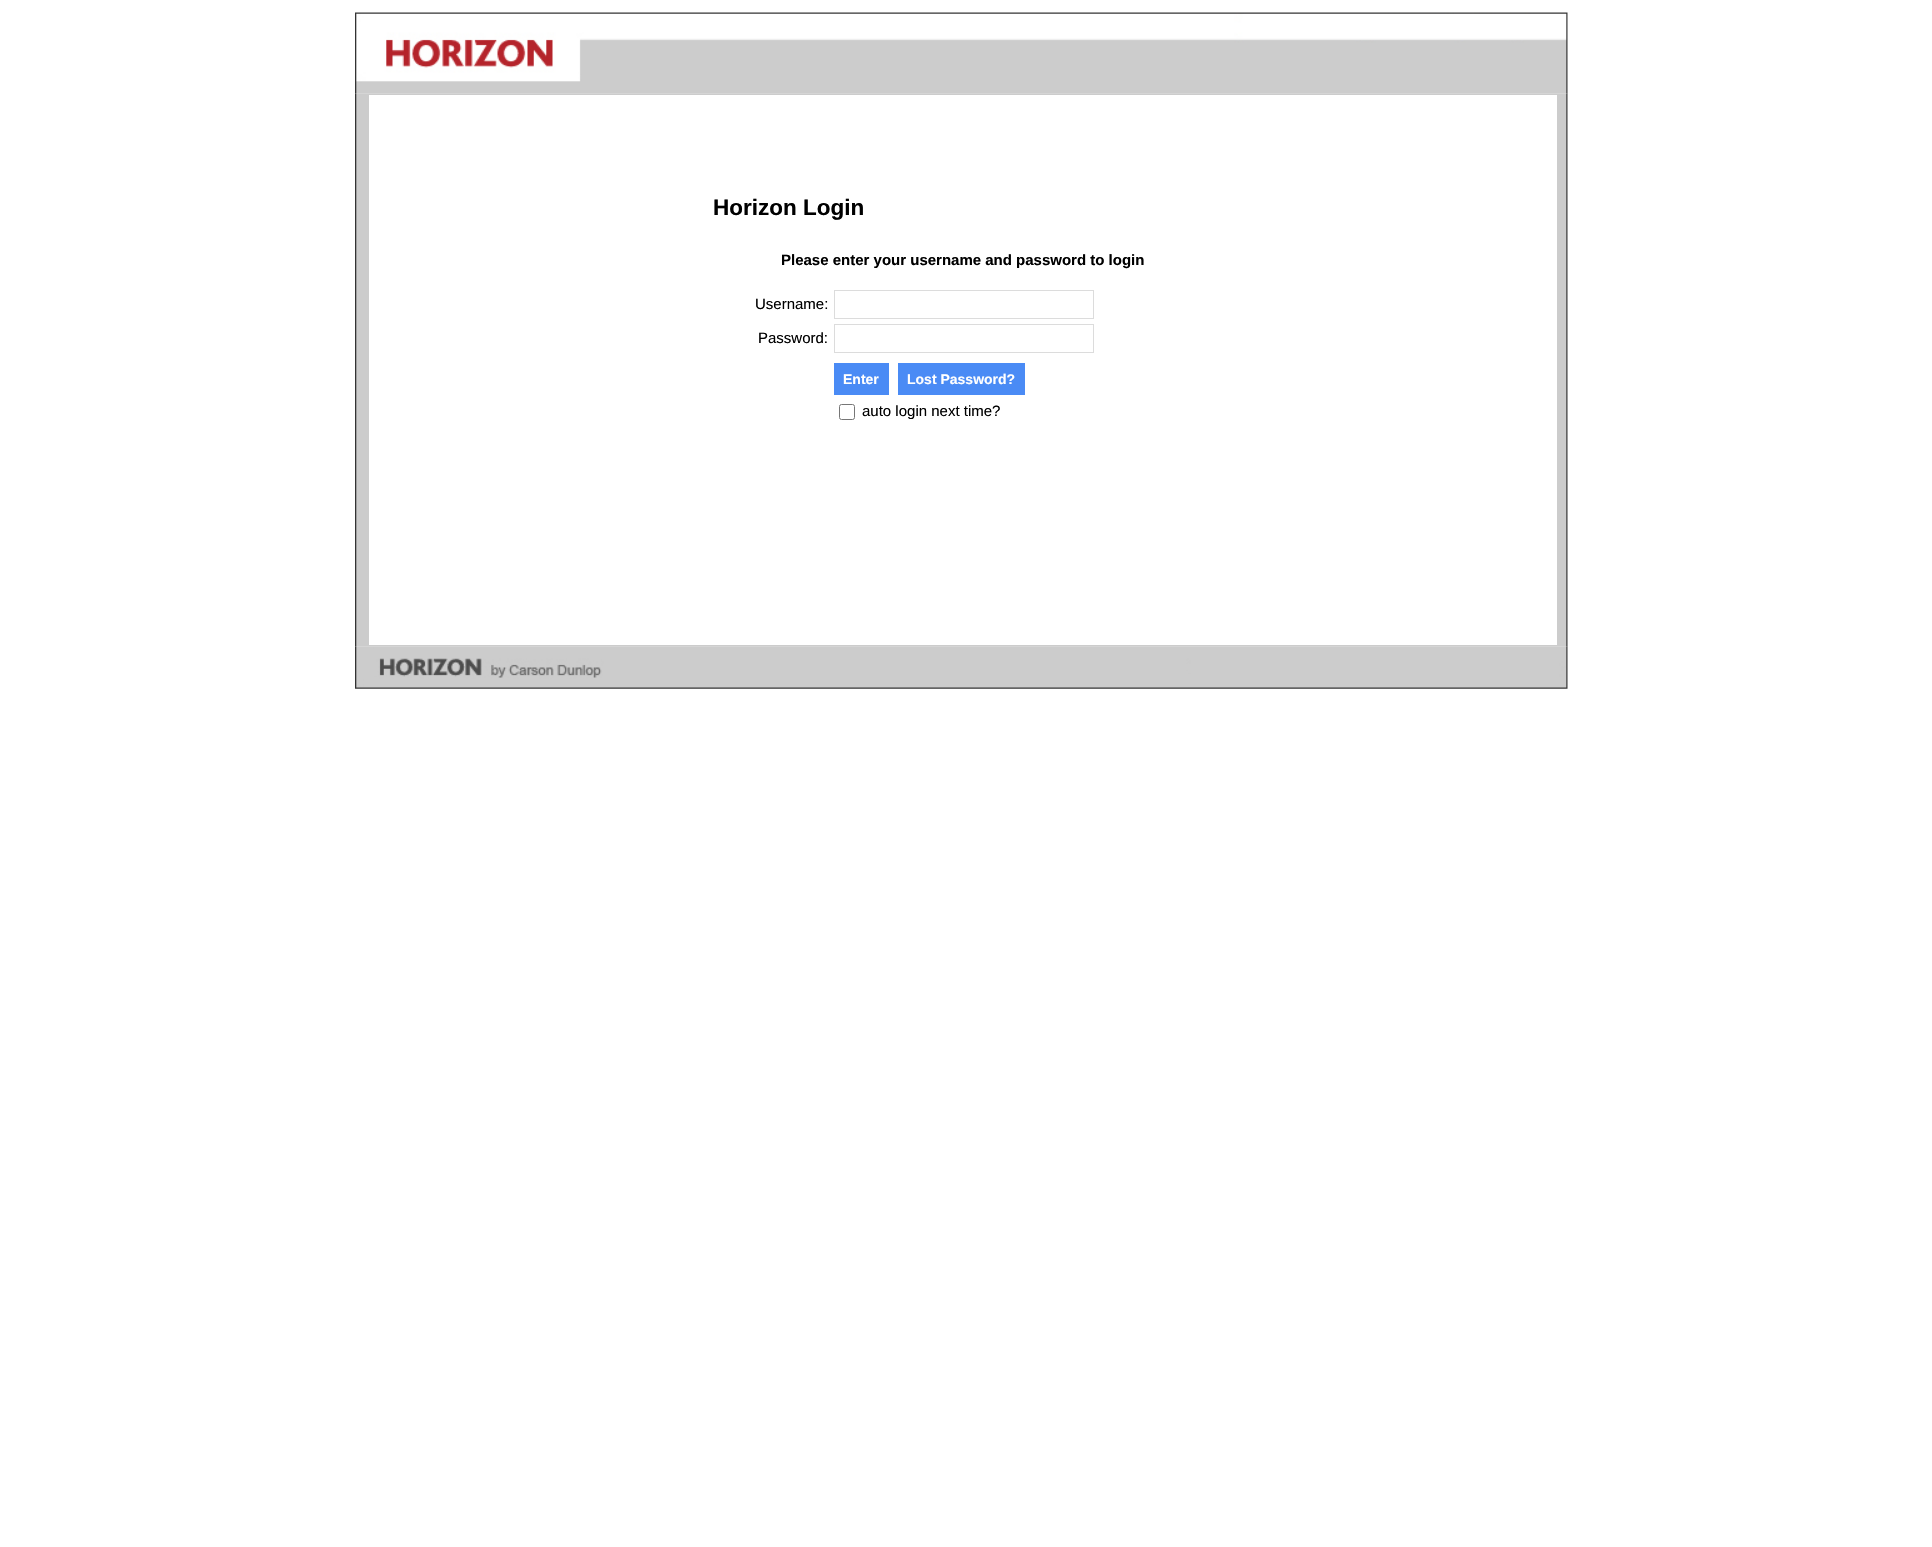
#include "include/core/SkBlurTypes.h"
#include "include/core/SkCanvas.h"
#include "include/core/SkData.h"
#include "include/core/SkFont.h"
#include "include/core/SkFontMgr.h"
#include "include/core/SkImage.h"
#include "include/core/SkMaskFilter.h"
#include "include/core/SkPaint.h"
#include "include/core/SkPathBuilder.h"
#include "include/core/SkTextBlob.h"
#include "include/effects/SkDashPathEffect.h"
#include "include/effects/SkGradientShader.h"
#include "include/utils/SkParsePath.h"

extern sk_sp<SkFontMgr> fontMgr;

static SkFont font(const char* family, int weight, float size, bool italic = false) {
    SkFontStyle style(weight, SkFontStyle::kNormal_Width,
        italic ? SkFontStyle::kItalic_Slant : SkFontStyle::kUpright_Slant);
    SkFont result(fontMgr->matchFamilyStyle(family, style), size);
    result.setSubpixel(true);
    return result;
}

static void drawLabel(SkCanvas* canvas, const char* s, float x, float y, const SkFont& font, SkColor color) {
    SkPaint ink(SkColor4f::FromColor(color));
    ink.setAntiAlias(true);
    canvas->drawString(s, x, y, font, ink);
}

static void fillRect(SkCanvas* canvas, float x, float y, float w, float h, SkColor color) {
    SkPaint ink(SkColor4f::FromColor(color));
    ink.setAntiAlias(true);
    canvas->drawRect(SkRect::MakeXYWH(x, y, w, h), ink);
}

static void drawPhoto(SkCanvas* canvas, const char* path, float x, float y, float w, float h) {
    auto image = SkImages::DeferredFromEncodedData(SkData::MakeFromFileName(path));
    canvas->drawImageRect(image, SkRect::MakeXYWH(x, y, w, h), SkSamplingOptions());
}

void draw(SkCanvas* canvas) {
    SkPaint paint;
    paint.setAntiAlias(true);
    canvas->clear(0xFFFFFFFF);
    drawPhoto(canvas, "assets/img1.png", 355, 12, 1213, 82);
    drawPhoto(canvas, "assets/img2.png", 355, 93, 1213, 554);
    fillRect(canvas, 369, 95, 1188, 550, 0xFFFFFFFF);
    SkFont font1 = font("Liberation Sans", 700, 22.5f);
    drawLabel(canvas, "Horizon Login", 713, 215, font1, 0xFF000000);
    SkFont font2 = font("Liberation Sans", 700, 15);
    drawLabel(canvas, "Please enter your username and password to login", 781, 265, font2, 0xFF000000);
    SkFont font3 = font("Liberation Sans", 400, 15);
    drawLabel(canvas, "Username:", 755, 309, font3, 0xFF000000);
    paint.setStroke(true);
    paint.setStrokeWidth(1);
    paint.setColor(0xFFDCDCDC);
    canvas->drawRect(SkRect::MakeXYWH(834.5f, 290.5f, 259, 28), paint);
    drawLabel(canvas, "Password:", 758, 343, font3, 0xFF000000);
    canvas->drawRect(SkRect::MakeXYWH(834.5f, 324.5f, 259, 28), paint);
    fillRect(canvas, 834, 363, 55, 32, 0xFF4A8BF5);
    SkFont font4 = font("Liberation Sans", 700, 14);
    drawLabel(canvas, "Enter", 843, 384, font4, 0xFFFFFFFF);
    fillRect(canvas, 898, 363, 127, 32, 0xFF4A8BF5);
    drawLabel(canvas, "Lost Password?", 907, 384, font4, 0xFFFFFFFF);
    paint.setColor(0xFF767676);
    canvas->drawRoundRect(SkRect::MakeXYWH(839.5f, 404.5f, 15, 15), 2, 2, paint);
    drawLabel(canvas, "auto login next time?", 862, 416, font3, 0xFF000000);
    drawPhoto(canvas, "assets/img3.png", 355, 646, 1213, 43);
}
